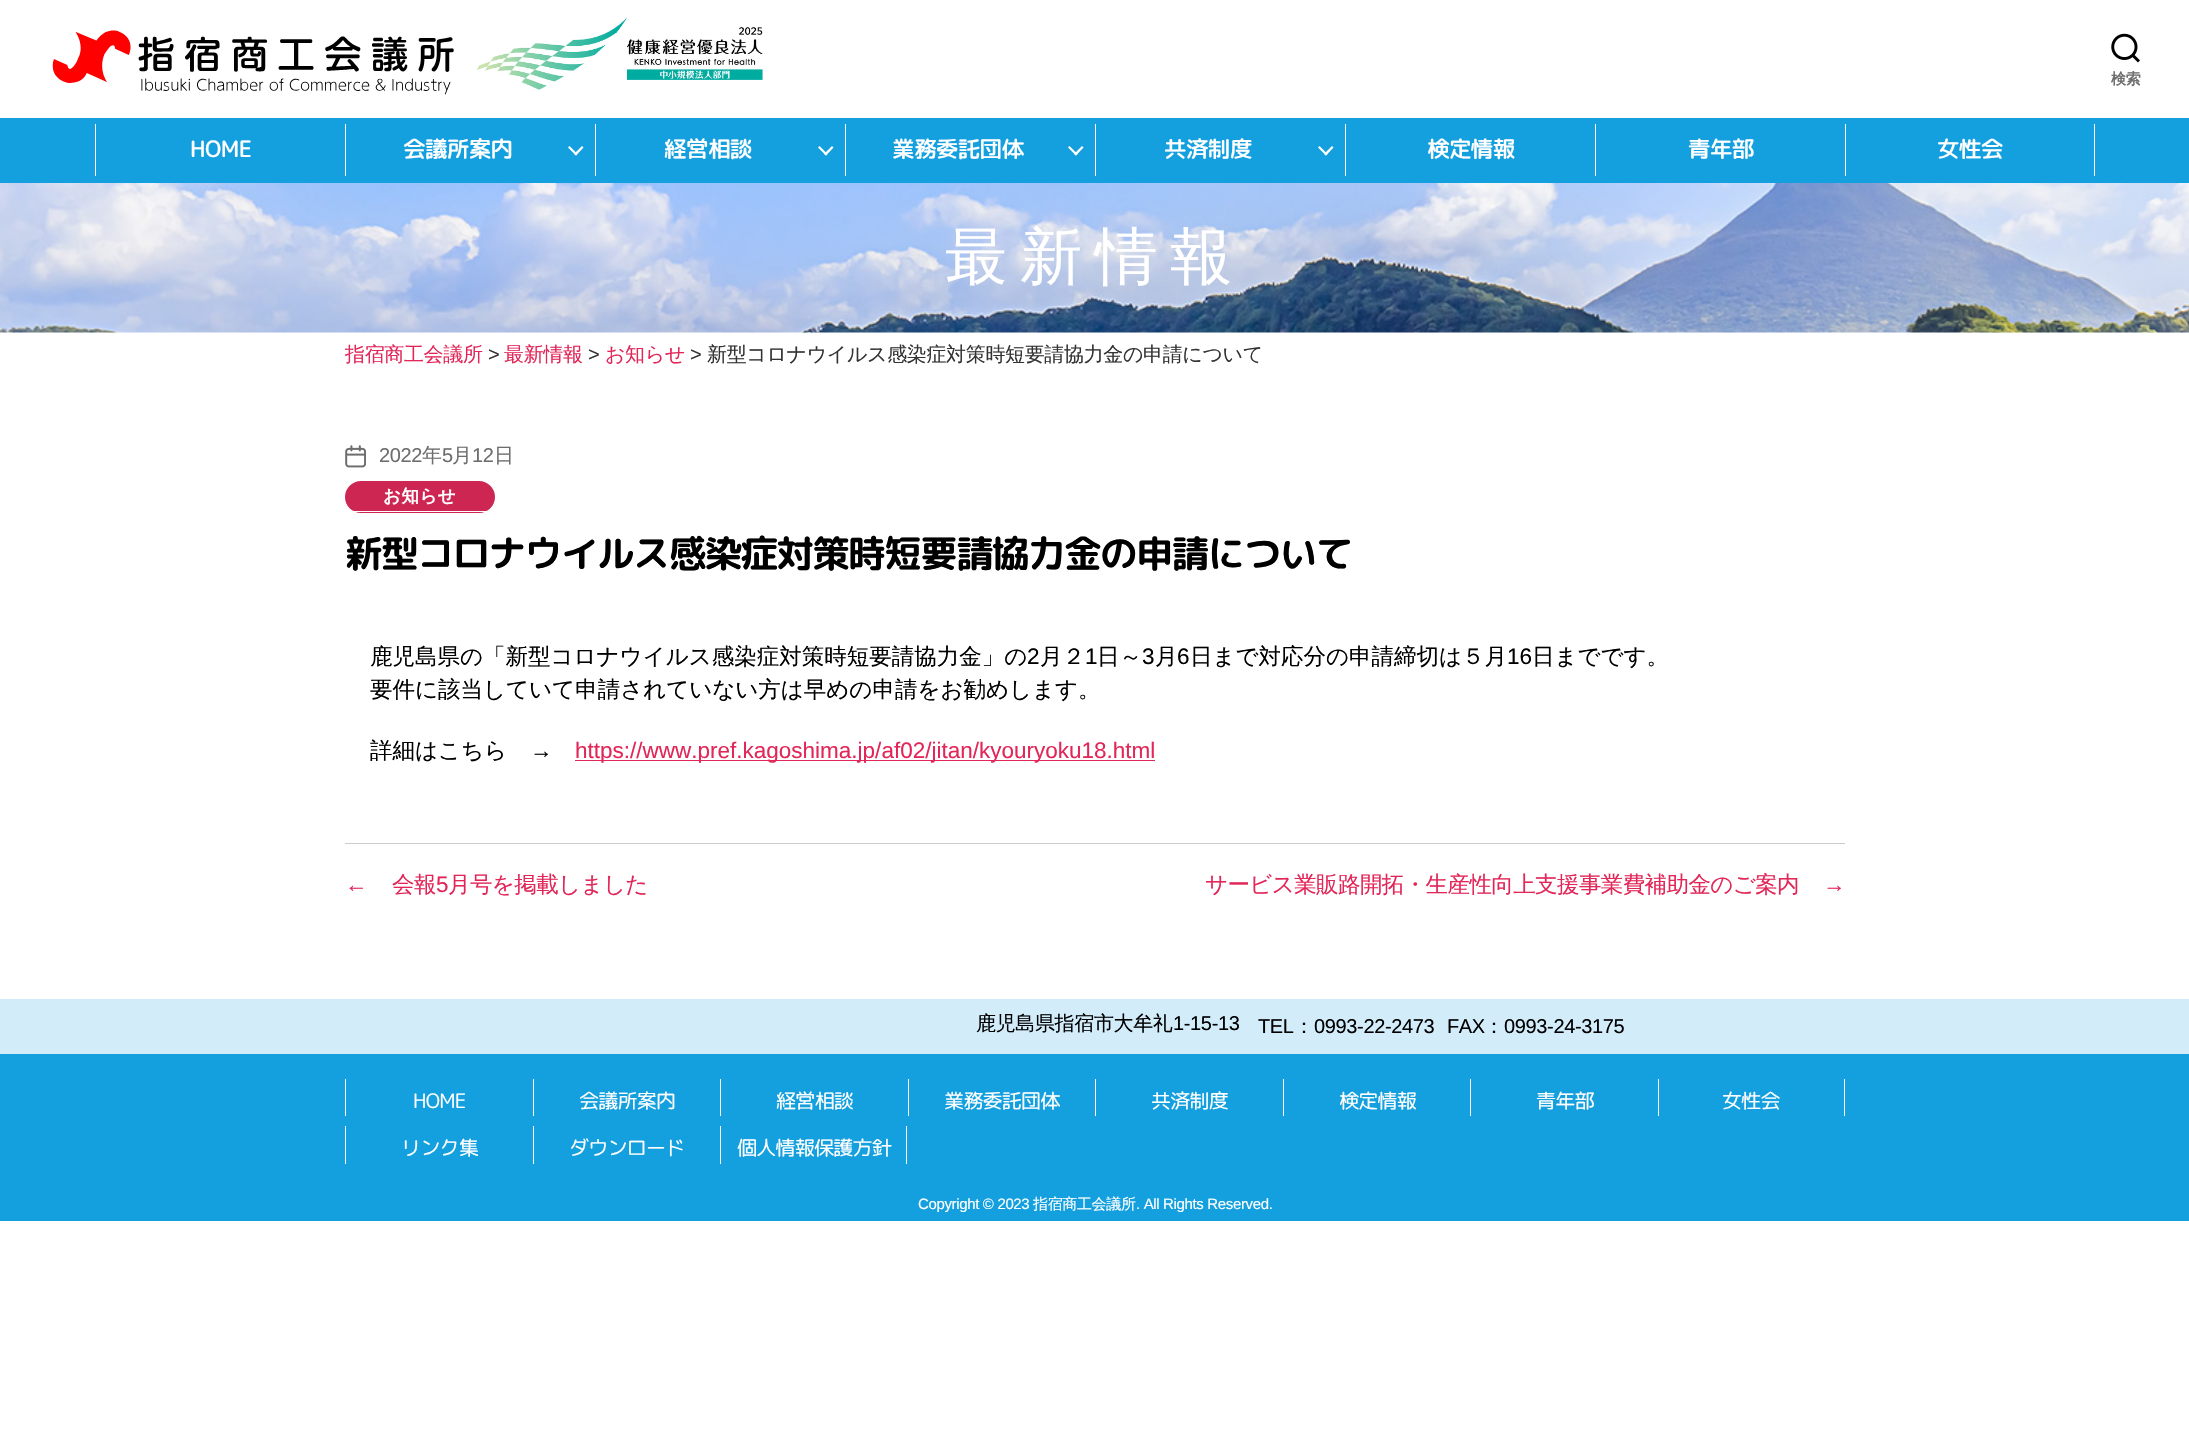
#include "include/core/SkBlurTypes.h"
#include "include/core/SkCanvas.h"
#include "include/core/SkData.h"
#include "include/core/SkFont.h"
#include "include/core/SkFontMgr.h"
#include "include/core/SkImage.h"
#include "include/core/SkMaskFilter.h"
#include "include/core/SkPaint.h"
#include "include/core/SkPathBuilder.h"
#include "include/core/SkTextBlob.h"
#include "include/effects/SkDashPathEffect.h"
#include "include/effects/SkGradientShader.h"
#include "include/utils/SkParsePath.h"

extern sk_sp<SkFontMgr> fontMgr;

static SkFont font(const char* family, int weight, float size, bool italic = false) {
    SkFontStyle style(weight, SkFontStyle::kNormal_Width,
        italic ? SkFontStyle::kItalic_Slant : SkFontStyle::kUpright_Slant);
    SkFont result(fontMgr->matchFamilyStyle(family, style), size);
    result.setSubpixel(true);
    return result;
}

static void drawLabel(SkCanvas* canvas, const char* s, float x, float y, const SkFont& font, SkColor color) {
    SkPaint ink(SkColor4f::FromColor(color));
    ink.setAntiAlias(true);
    canvas->drawString(s, x, y, font, ink);
}

static void drawTracked(SkCanvas* canvas, const char* s, float x, float y, const SkFont& font, const SkPaint& ink, float letter, float word) {
    std::vector<SkGlyphID> glyphs(font.countText(s, strlen(s), SkTextEncoding::kUTF8));
    std::vector<float> xs(glyphs.size());
    font.textToGlyphs(s, strlen(s), SkTextEncoding::kUTF8, glyphs);
    font.getXPos(glyphs, xs, x);
    float extra = 0;
    for (size_t i = 0; i < glyphs.size(); i++) {
        xs[i] += extra;
        extra += letter + word * (glyphs[i] == font.unicharToGlyph(' '));
    }
    canvas->drawTextBlob(SkTextBlob::MakeFromPosHGlyphs(glyphs, xs, y, font), 0, 0, ink);
}

static void fillRect(SkCanvas* canvas, float x, float y, float w, float h, SkColor color) {
    SkPaint ink(SkColor4f::FromColor(color));
    ink.setAntiAlias(true);
    canvas->drawRect(SkRect::MakeXYWH(x, y, w, h), ink);
}

static void fillRRect(SkCanvas* canvas, float x, float y, float w, float h, float radius, SkColor color) {
    SkPaint ink(SkColor4f::FromColor(color));
    ink.setAntiAlias(true);
    canvas->drawRoundRect(SkRect::MakeXYWH(x, y, w, h), radius, radius, ink);
}

static void drawPhoto(SkCanvas* canvas, const char* path, float x, float y, float w, float h) {
    auto image = SkImages::DeferredFromEncodedData(SkData::MakeFromFileName(path));
    canvas->drawImageRect(image, SkRect::MakeXYWH(x, y, w, h), SkSamplingOptions());
}

static SkPath parsePath(const char* data, bool evenOdd = false) {
    SkPath result = *SkParsePath::FromSVGString(data);
    if (evenOdd) result.setFillType(SkPathFillType::kEvenOdd);
    return result;
}

void draw(SkCanvas* canvas) {
    SkPaint paint;
    paint.setAntiAlias(true);
    canvas->clear(0xFFFFFFFF);
    drawPhoto(canvas, "assets/img1.png", 52, 30, 402, 65);
    drawPhoto(canvas, "assets/img2.png", 476, 17, 287, 73);
    drawPhoto(canvas, "assets/img3.png", 2111, 33, 29, 30);
    SkFont font1 = font("WenQuanYi Zen Hei", 700, 15);
    paint.setColor(0xFF6D6D6D);
    drawTracked(canvas, "検索", 2111, 84, font1, paint, -0.35f, 0);
    fillRect(canvas, 0, 118, 2189, 65, 0xFF14A0DE);
    fillRect(canvas, 95, 124, 1, 52, 0xFFFFFFFF);
    SkFont font2 = font("Rounded Mplus 1c", 500, 22.5f);
    paint.setColor(0xFFFFFFFF);
    drawTracked(canvas, "HOME", 190, 157, font2, paint, -0.6f, 0);
    fillRect(canvas, 345, 124, 1, 52, 0xFFFFFFFF);
    drawTracked(canvas, "会議所案内", 403, 157, font2, paint, -0.6f, 0);
    canvas->drawPath(parsePath("M568 147.5L569.5 146L577.5 154L576 155.5Z"), paint);
    canvas->drawPath(parsePath("M574 154L582 146L583.5 147.5L576 155.5Z"), paint);
    fillRect(canvas, 595, 124, 1, 52, 0xFFFFFFFF);
    drawTracked(canvas, "経営相談", 664, 157, font2, paint, -0.6f, 0);
    canvas->drawPath(parsePath("M818 147.5L819.5 146L827.5 154L826 155.5Z"), paint);
    canvas->drawPath(parsePath("M824 154L832 146L833.5 147.5L826 155.5Z"), paint);
    fillRect(canvas, 845, 124, 1, 52, 0xFFFFFFFF);
    drawTracked(canvas, "業務委託団体", 892, 157, font2, paint, -0.6f, 0);
    canvas->drawPath(parsePath("M1068 147.5L1069.5 146L1077.5 154L1076 155.5Z"), paint);
    canvas->drawPath(parsePath("M1074 154L1082 146L1083.5 147.5L1076 155.5Z"), paint);
    fillRect(canvas, 1095, 124, 1, 52, 0xFFFFFFFF);
    drawTracked(canvas, "共済制度", 1164, 157, font2, paint, -0.6f, 0);
    canvas->drawPath(parsePath("M1318 147.5L1319.5 146L1327.5 154L1326 155.5Z"), paint);
    canvas->drawPath(parsePath("M1324 154L1332 146L1333.5 147.5L1326 155.5Z"), paint);
    fillRect(canvas, 1345, 124, 1, 52, 0xFFFFFFFF);
    drawTracked(canvas, "検定情報", 1427, 157, font2, paint, -0.6f, 0);
    fillRect(canvas, 1595, 124, 1, 52, 0xFFFFFFFF);
    drawTracked(canvas, "青年部", 1688, 157, font2, paint, -0.6f, 0);
    fillRect(canvas, 2094, 124, 1, 52, 0xFFFFFFFF);
    fillRect(canvas, 1845, 124, 1, 52, 0xFFFFFFFF);
    drawTracked(canvas, "女性会", 1937, 157, font2, paint, -0.6f, 0);
    drawPhoto(canvas, "assets/img4.png", 0, 183, 2189, 150);
    SkFont font3 = font("WenQuanYi Zen Hei", 500, 62.5f);
    drawTracked(canvas, "最新情報", 945, 278, font3, paint, 12.5f, 0);
    SkFont font4 = font("WenQuanYi Zen Hei", 500, 20);
    paint.setColor(0xFFE22658);
    drawTracked(canvas, "指宿商工会議所", 345, 361, font4, paint, -0.35f, 0);
    SkFont font5 = font("Liberation Sans", 400, 20);
    paint.setColor(0xFF333333);
    drawTracked(canvas, ">", 488, 361, font5, paint, -0.35f, 0);
    paint.setColor(0xFFE22658);
    drawTracked(canvas, "最新情報", 504, 361, font4, paint, -0.35f, 0);
    paint.setColor(0xFF333333);
    drawTracked(canvas, ">", 588, 361, font5, paint, -0.35f, 0);
    paint.setColor(0xFFE22658);
    drawTracked(canvas, "お知らせ", 605, 361, font4, paint, -0.35f, 0);
    paint.setColor(0xFF333333);
    drawTracked(canvas, ">", 690, 361, font5, paint, -0.35f, 0);
    drawTracked(canvas, "新型コロナウイルス感染症対策時短要請協力金の申請について", 707, 361, font4, paint, -0.35f, 0);
    drawPhoto(canvas, "assets/img5.png", 345, 445, 21, 23);
    paint.setColor(0xFF6D6D6D);
    drawTracked(canvas, "2022", 379, 462, font5, paint, -0.35f, 0);
    drawTracked(canvas, "年", 422, 462, font4, paint, -0.35f, 0);
    drawTracked(canvas, "5", 442, 462, font5, paint, -0.35f, 0);
    drawTracked(canvas, "月", 452, 462, font4, paint, -0.35f, 0);
    drawTracked(canvas, "12", 472, 462, font5, paint, -0.35f, 0);
    drawTracked(canvas, "日", 494, 462, font4, paint, -0.35f, 0);
    fillRRect(canvas, 345, 481, 150, 32, 16, 0xFFCD2653);
    fillRect(canvas, 353, 511, 135, 1, 0xFFFFFFFF);
    SkFont font6 = font("WenQuanYi Zen Hei", 700, 17.5f);
    paint.setColor(0xFFFFFFFF);
    drawTracked(canvas, "お知らせ", 383, 502, font6, paint, 0.5f, 0);
    SkFont font7 = font("Rounded Mplus 1c Bold", 700, 37.5f);
    paint.setColor(0xFF000000);
    drawTracked(canvas, "新型コロナウイルス感染症対策時短要請協力金の申請について", 345, 567, font7, paint, -1.55f, 0);
    SkFont font8 = font("WenQuanYi Zen Hei", 500, 22.5f);
    drawLabel(canvas, "鹿児島県の「新型コロナウイルス感染症対策時短要請協力金」の", 370, 664, font8, 0xFF000000);
    SkFont font9 = font("Liberation Sans", 400, 22.5f);
    drawLabel(canvas, "2", 1027, 664, font9, 0xFF000000);
    drawLabel(canvas, "月２", 1040, 664, font8, 0xFF000000);
    drawLabel(canvas, "1", 1085, 664, font9, 0xFF000000);
    drawLabel(canvas, "日～", 1097, 664, font8, 0xFF000000);
    drawLabel(canvas, "3", 1142, 664, font9, 0xFF000000);
    drawLabel(canvas, "月", 1155, 664, font8, 0xFF000000);
    drawLabel(canvas, "6", 1177, 664, font9, 0xFF000000);
    drawLabel(canvas, "日まで対応分の申請締切は５月", 1190, 664, font8, 0xFF000000);
    drawLabel(canvas, "16", 1507, 664, font9, 0xFF000000);
    drawLabel(canvas, "日までです。", 1532, 664, font8, 0xFF000000);
    drawLabel(canvas, "要件に該当していて申請されていない方は早めの申請をお勧めします。", 370, 697, font8, 0xFF000000);
    drawLabel(canvas, "詳細はこちら", 370, 758, font8, 0xFF000000);
    drawLabel(canvas, "→", 530, 758, font9, 0xFF000000);
    fillRect(canvas, 575, 760, 580, 1, 0xFFE22658);
    drawLabel(canvas, "https://www.pref.kagoshima.jp/af02/jitan/kyouryoku18.html", 575, 758, font9, 0xFFE22658);
    fillRect(canvas, 345, 843, 1500, 1, 0xFFCCCCCC);
    paint.setColor(0xFFE22658);
    drawTracked(canvas, "←", 345, 892, font9, paint, -0.6f, 0);
    drawTracked(canvas, "会報", 392, 892, font8, paint, -0.6f, 0);
    drawTracked(canvas, "5", 436, 892, font9, paint, -0.6f, 0);
    drawTracked(canvas, "月号を掲載しました", 448, 892, font8, paint, -0.6f, 0);
    drawTracked(canvas, "サービス業販路開拓・生産性向上支援事業費補助金のご案内", 1205, 892, font8, paint, -0.6f, 0);
    drawTracked(canvas, "→", 1823, 892, font9, paint, -0.6f, 0);
    fillRect(canvas, 0, 999, 2189, 55, 0xFFD2ECFA);
    paint.setColor(0xFF000000);
    drawTracked(canvas, "鹿児島県指宿市大牟礼", 976, 1030, font4, paint, -0.35f, 0);
    drawTracked(canvas, "1-15-13", 1173, 1030, font5, paint, -0.35f, 0);
    drawTracked(canvas, "TEL", 1258, 1033, font5, paint, -0.35f, 0);
    drawTracked(canvas, "：", 1294, 1033, font4, paint, -0.35f, 0);
    drawTracked(canvas, "0993-22-2473", 1314, 1033, font5, paint, -0.35f, 0);
    drawTracked(canvas, "FAX", 1447, 1033, font5, paint, -0.35f, 0);
    drawTracked(canvas, "：", 1484, 1033, font4, paint, -0.35f, 0);
    drawTracked(canvas, "0993-24-3175", 1504, 1033, font5, paint, -0.35f, 0);
    fillRect(canvas, 0, 1054, 2189, 167, 0xFF14A0DE);
    fillRect(canvas, 345, 1079, 1, 37, 0xFFFFFFFF);
    SkFont font10 = font("Rounded Mplus 1c", 400, 20);
    paint.setColor(0xFFFFFFFF);
    drawTracked(canvas, "HOME", 413, 1108, font10, paint, -0.75f, 0);
    fillRect(canvas, 533, 1079, 1, 37, 0xFFFFFFFF);
    drawTracked(canvas, "会議所案内", 579, 1108, font10, paint, -0.75f, 0);
    fillRect(canvas, 720, 1079, 1, 37, 0xFFFFFFFF);
    drawTracked(canvas, "経営相談", 776, 1108, font10, paint, -0.75f, 0);
    fillRect(canvas, 908, 1079, 1, 37, 0xFFFFFFFF);
    drawTracked(canvas, "業務委託団体", 944, 1108, font10, paint, -0.75f, 0);
    fillRect(canvas, 1095, 1079, 1, 37, 0xFFFFFFFF);
    drawTracked(canvas, "共済制度", 1151, 1108, font10, paint, -0.75f, 0);
    fillRect(canvas, 1283, 1079, 1, 37, 0xFFFFFFFF);
    drawTracked(canvas, "検定情報", 1339, 1108, font10, paint, -0.75f, 0);
    fillRect(canvas, 1470, 1079, 1, 37, 0xFFFFFFFF);
    drawTracked(canvas, "青年部", 1536, 1108, font10, paint, -0.75f, 0);
    fillRect(canvas, 1844, 1079, 1, 37, 0xFFFFFFFF);
    fillRect(canvas, 1658, 1079, 1, 37, 0xFFFFFFFF);
    drawTracked(canvas, "女性会", 1722, 1108, font10, paint, -0.75f, 0);
    fillRect(canvas, 345, 1126, 1, 38, 0xFFFFFFFF);
    drawTracked(canvas, "リンク集", 401, 1155, font10, paint, -0.75f, 0);
    fillRect(canvas, 533, 1126, 1, 38, 0xFFFFFFFF);
    drawTracked(canvas, "ダウンロード", 569, 1155, font10, paint, -0.75f, 0);
    fillRect(canvas, 906, 1126, 1, 38, 0xFFFFFFFF);
    fillRect(canvas, 720, 1126, 1, 38, 0xFFFFFFFF);
    drawTracked(canvas, "個人情報保護方針", 737, 1155, font10, paint, -0.75f, 0);
    SkFont font11 = font("Liberation Sans", 400, 15);
    drawTracked(canvas, "Copyright © 2023", 918, 1209, font11, paint, -0.35f, 0);
    SkFont font12 = font("WenQuanYi Zen Hei", 500, 15);
    drawTracked(canvas, "指宿商工会議所", 1033, 1209, font12, paint, -0.35f, 0);
    drawTracked(canvas, ". All Rights Reserved.", 1136, 1209, font11, paint, -0.35f, 0);
}
